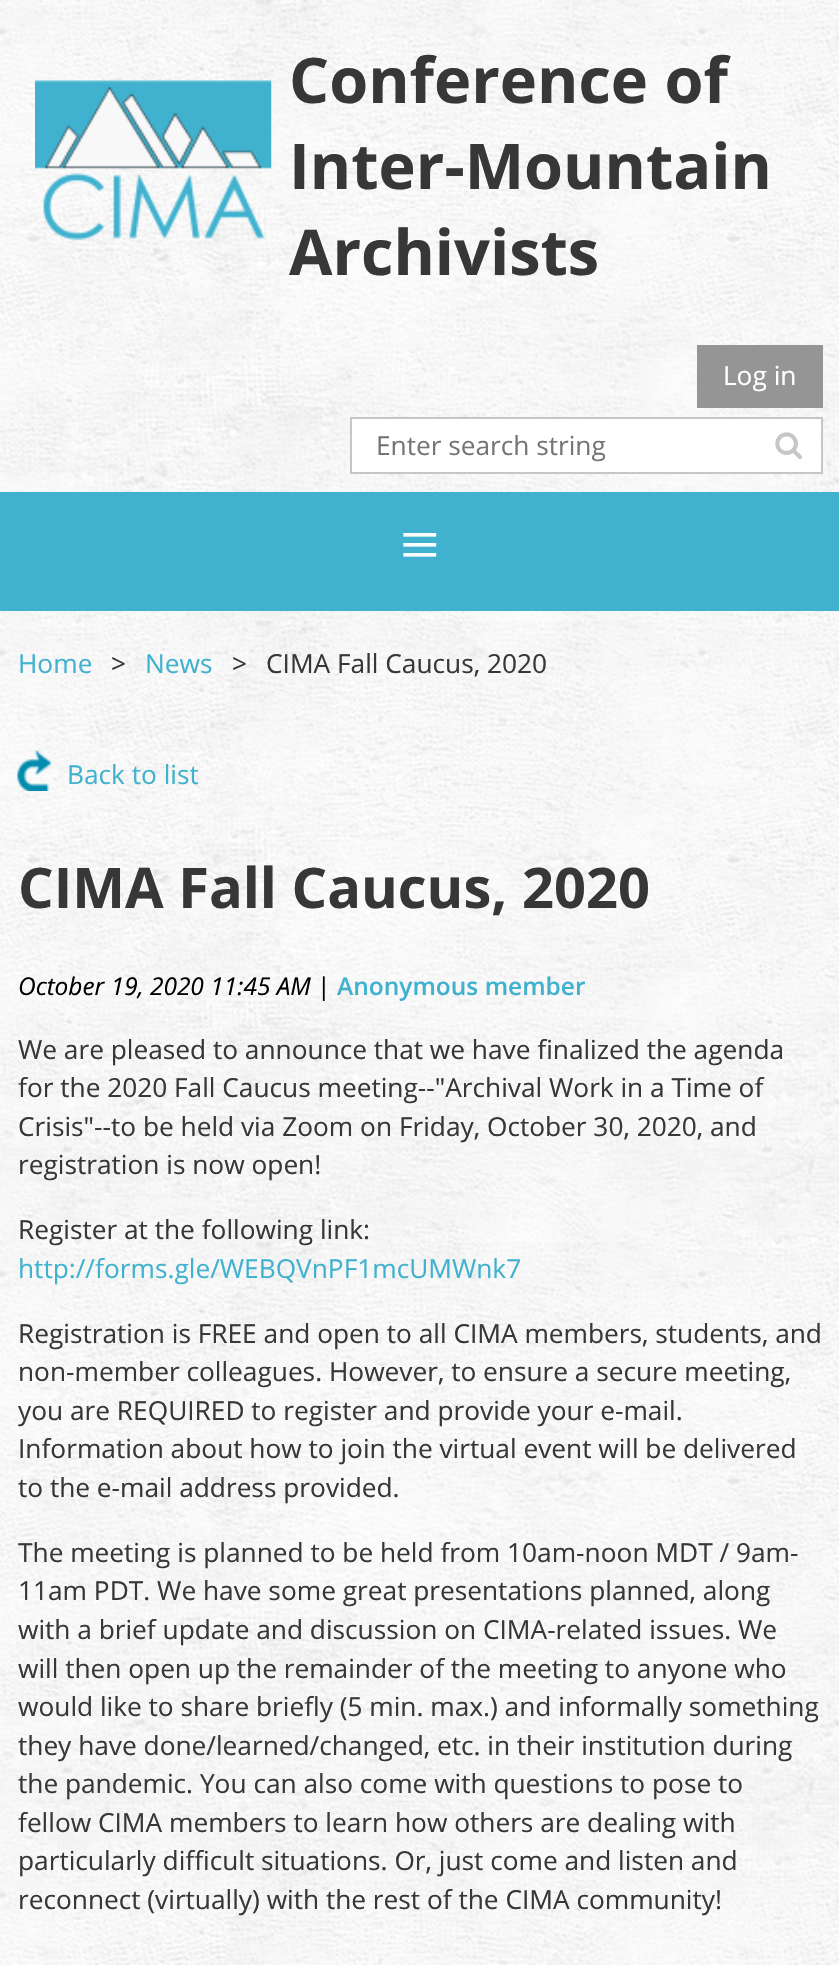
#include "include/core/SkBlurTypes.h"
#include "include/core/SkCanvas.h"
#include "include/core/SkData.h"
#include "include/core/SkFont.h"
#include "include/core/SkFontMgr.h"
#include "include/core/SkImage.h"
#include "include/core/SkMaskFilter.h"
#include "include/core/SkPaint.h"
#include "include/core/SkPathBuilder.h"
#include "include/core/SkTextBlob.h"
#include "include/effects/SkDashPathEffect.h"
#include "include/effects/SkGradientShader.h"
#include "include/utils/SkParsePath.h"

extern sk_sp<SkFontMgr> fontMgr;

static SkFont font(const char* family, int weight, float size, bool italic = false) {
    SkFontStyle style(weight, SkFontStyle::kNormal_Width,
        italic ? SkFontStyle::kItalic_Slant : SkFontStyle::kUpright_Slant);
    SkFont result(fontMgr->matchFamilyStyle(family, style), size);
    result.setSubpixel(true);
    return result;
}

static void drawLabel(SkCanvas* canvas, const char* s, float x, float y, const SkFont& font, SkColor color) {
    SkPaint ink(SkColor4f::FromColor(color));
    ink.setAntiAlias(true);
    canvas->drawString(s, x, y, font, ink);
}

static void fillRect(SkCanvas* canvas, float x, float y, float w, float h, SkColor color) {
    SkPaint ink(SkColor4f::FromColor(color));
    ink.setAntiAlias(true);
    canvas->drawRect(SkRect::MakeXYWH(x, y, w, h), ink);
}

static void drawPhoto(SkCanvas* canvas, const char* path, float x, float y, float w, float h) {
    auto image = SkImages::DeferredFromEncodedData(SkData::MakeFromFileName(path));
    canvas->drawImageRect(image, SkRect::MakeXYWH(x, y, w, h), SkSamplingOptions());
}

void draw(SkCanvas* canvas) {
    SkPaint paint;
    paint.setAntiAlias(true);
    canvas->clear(0xFFFFFFFF);
    drawPhoto(canvas, "assets/img1.png", 0, 0, 839, 1965);
    drawPhoto(canvas, "assets/img2.png", 35, 80, 237, 161);
    SkFont font1 = font("Open Sans", 700, 63);
    drawLabel(canvas, "Conference of", 289, 103, font1, 0xFF373737);
    drawLabel(canvas, "Inter-Mountain", 289, 189, font1, 0xFF373737);
    drawLabel(canvas, "Archivists", 289, 275, font1, 0xFF373737);
    fillRect(canvas, 697, 345, 126, 63, 0xFF959595);
    SkFont font2 = font("Open Sans", 400, 26.25f);
    drawLabel(canvas, "Log in", 723, 385, font2, 0xFFFFFFFF);
    paint.setColor(0xFFFFFFFF);
    canvas->drawRect(SkRect::MakeXYWH(351, 418, 471, 55), paint);
    paint.setStroke(true);
    paint.setStrokeWidth(2);
    paint.setColor(0xFFC6C6C6);
    canvas->drawRect(SkRect::MakeXYWH(351, 418, 471, 55), paint);
    drawLabel(canvas, "Enter search string", 376, 455, font2, 0xFF757575);
    drawPhoto(canvas, "assets/img3.png", 775, 432, 27, 27);
    fillRect(canvas, 0, 492, 839, 119, 0xFF40B2CF);
    SkFont font3 = font("Liberation Serif", 400, 70);
    drawLabel(canvas, "≡", 400, 568, font3, 0xFFFFFFFF);
    drawLabel(canvas, "Home", 18, 673, font2, 0xFF40B2CF);
    drawLabel(canvas, ">", 111, 673, font2, 0xFF373737);
    drawLabel(canvas, "News", 145, 673, font2, 0xFF40B2CF);
    drawLabel(canvas, ">", 232, 673, font2, 0xFF373737);
    drawLabel(canvas, "CIMA Fall Caucus, 2020", 266, 673, font2, 0xFF373737);
    drawPhoto(canvas, "assets/img4.png", 17, 750, 34, 41);
    drawLabel(canvas, "Back to list", 67, 784, font2, 0xFF40B2CF);
    SkFont font4 = font("Open Sans", 700, 56);
    drawLabel(canvas, "CIMA Fall Caucus, 2020", 18, 908, font4, 0xFF373737);
    SkFont font5 = font("Open Sans", 400, 24.5f, true);
    drawLabel(canvas, "October 19, 2020 11:45 AM", 18, 995, font5, 0xFF000000);
    SkFont font6 = font("Open Sans", 400, 24.5f);
    drawLabel(canvas, "|", 317, 995, font6, 0xFF000000);
    SkFont font7 = font("Open Sans", 600, 24.5f);
    drawLabel(canvas, "Anonymous member", 337, 995, font7, 0xFF40B2CF);
    drawLabel(canvas, "We are pleased to announce that we have finalized the agenda", 18, 1059, font2, 0xFF373737);
    drawLabel(canvas, "for the 2020 Fall Caucus meeting--\"Archival Work in a Time of", 18, 1097, font2, 0xFF373737);
    drawLabel(canvas, "Crisis\"--to be held via Zoom on Friday, October 30, 2020, and", 18, 1136, font2, 0xFF373737);
    drawLabel(canvas, "registration is now open!", 18, 1174, font2, 0xFF373737);
    drawLabel(canvas, "Register at the following link:", 18, 1239, font2, 0xFF373737);
    drawLabel(canvas, "http://forms.gle/WEBQVnPF1mcUMWnk7", 18, 1278, font2, 0xFF40B2CF);
    drawLabel(canvas, "Registration is FREE and open to all CIMA members, students, and", 18, 1343, font2, 0xFF373737);
    drawLabel(canvas, "non-member colleagues. However, to ensure a secure meeting,", 18, 1381, font2, 0xFF373737);
    drawLabel(canvas, "you are REQUIRED to register and provide your e-mail.", 18, 1420, font2, 0xFF373737);
    drawLabel(canvas, "Information about how to join the virtual event will be delivered", 18, 1458, font2, 0xFF373737);
    drawLabel(canvas, "to the e-mail address provided.", 18, 1497, font2, 0xFF373737);
    drawLabel(canvas, "The meeting is planned to be held from 10am-noon MDT / 9am-", 18, 1562, font2, 0xFF373737);
    drawLabel(canvas, "11am PDT. We have some great presentations planned, along", 18, 1600, font2, 0xFF373737);
    drawLabel(canvas, "with a brief update and discussion on CIMA-related issues. We", 18, 1639, font2, 0xFF373737);
    drawLabel(canvas, "will then open up the remainder of the meeting to anyone who", 18, 1678, font2, 0xFF373737);
    drawLabel(canvas, "would like to share briefly (5 min. max.) and informally something", 18, 1716, font2, 0xFF373737);
    drawLabel(canvas, "they have done/learned/changed, etc. in their institution during", 18, 1755, font2, 0xFF373737);
    drawLabel(canvas, "the pandemic. You can also come with questions to pose to", 18, 1793, font2, 0xFF373737);
    drawLabel(canvas, "fellow CIMA members to learn how others are dealing with", 18, 1832, font2, 0xFF373737);
    drawLabel(canvas, "particularly difficult situations. Or, just come and listen and", 18, 1870, font2, 0xFF373737);
    drawLabel(canvas, "reconnect (virtually) with the rest of the CIMA community!", 18, 1909, font2, 0xFF373737);
}
